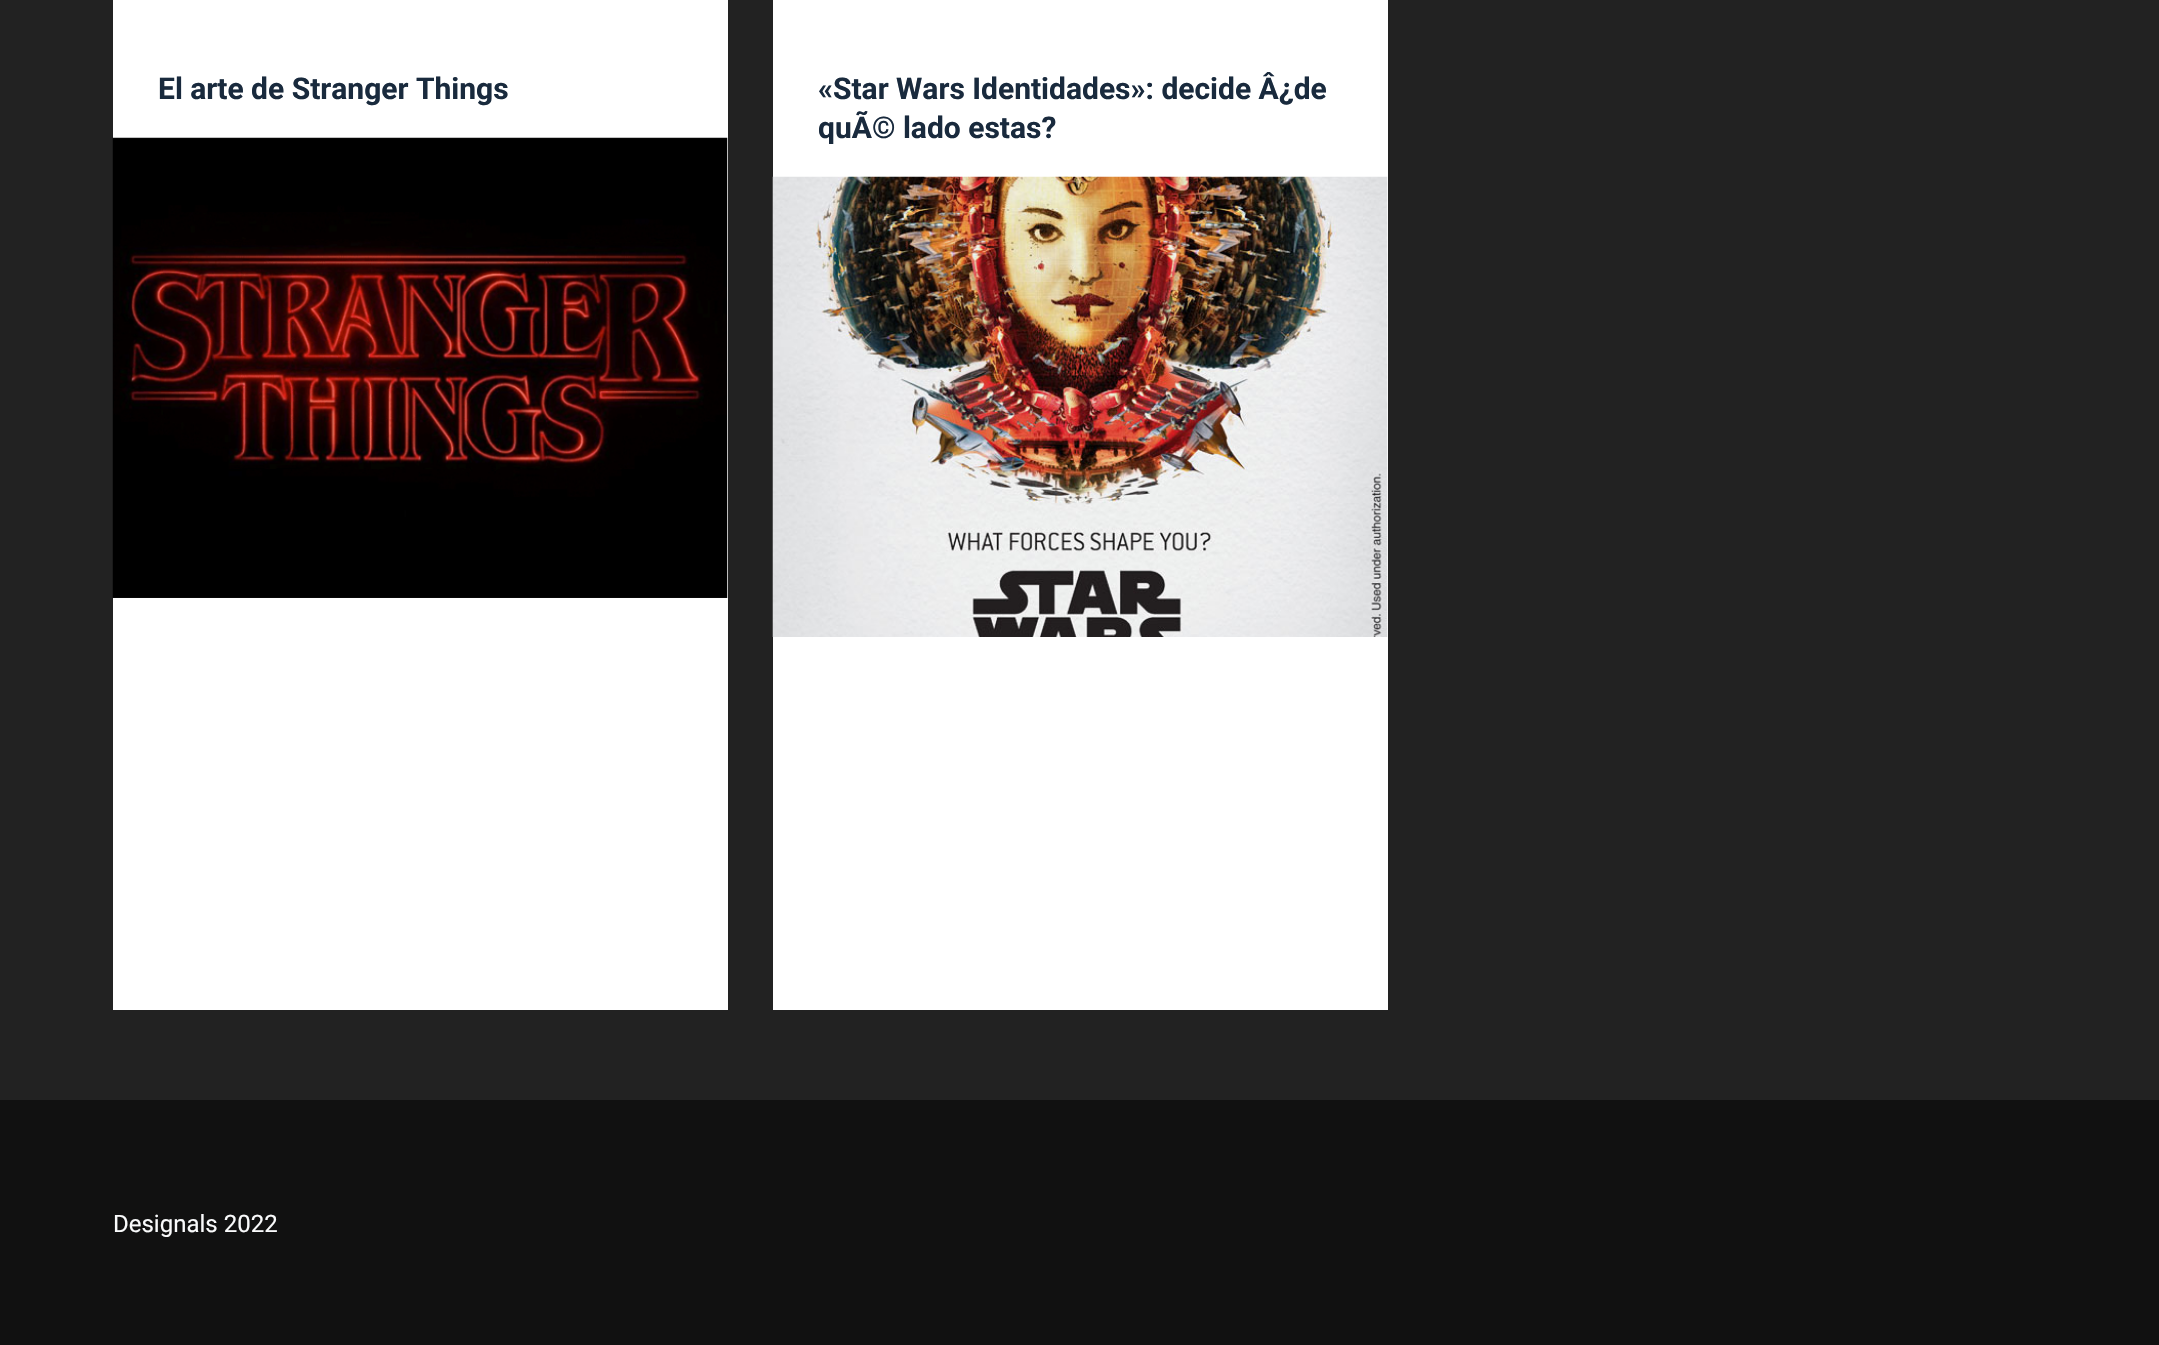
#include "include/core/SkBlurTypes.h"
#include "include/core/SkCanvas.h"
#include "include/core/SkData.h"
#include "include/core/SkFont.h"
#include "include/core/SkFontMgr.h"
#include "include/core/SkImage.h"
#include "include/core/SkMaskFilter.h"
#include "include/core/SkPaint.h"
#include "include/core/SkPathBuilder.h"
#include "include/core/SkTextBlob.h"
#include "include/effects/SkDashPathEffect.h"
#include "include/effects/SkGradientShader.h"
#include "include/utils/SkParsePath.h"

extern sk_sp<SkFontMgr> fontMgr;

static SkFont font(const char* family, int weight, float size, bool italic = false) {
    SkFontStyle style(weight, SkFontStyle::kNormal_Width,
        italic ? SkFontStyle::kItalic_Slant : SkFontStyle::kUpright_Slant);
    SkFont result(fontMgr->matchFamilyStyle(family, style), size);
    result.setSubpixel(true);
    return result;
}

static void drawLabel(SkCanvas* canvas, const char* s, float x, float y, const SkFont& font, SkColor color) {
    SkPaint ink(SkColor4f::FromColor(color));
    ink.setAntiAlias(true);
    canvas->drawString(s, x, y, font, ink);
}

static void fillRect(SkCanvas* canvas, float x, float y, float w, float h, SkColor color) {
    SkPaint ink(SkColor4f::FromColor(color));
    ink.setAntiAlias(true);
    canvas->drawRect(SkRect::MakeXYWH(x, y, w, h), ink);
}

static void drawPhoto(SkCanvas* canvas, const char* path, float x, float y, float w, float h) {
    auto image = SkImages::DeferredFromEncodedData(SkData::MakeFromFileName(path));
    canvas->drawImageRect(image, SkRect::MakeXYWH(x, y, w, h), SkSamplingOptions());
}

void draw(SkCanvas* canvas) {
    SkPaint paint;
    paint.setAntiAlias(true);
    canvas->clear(0xFF222222);
    fillRect(canvas, 113, 0, 615, 1010, 0xFFFFFFFF);
    SkFont font1 = font("Roboto", 700, 30);
    drawLabel(canvas, "El arte de Stranger Things", 158, 99, font1, 0xFF192A3D);
    drawPhoto(canvas, "assets/img1.png", 112, 137, 616, 461);
    fillRect(canvas, 773, 0, 615, 1010, 0xFFFFFFFF);
    drawLabel(canvas, "«Star Wars Identidades»: decide Â¿de", 818, 99, font1, 0xFF192A3D);
    drawLabel(canvas, "quÃ© lado estas?", 818, 138, font1, 0xFF192A3D);
    drawPhoto(canvas, "assets/img2.png", 772, 176, 616, 461);
    fillRect(canvas, 0, 1100, 2159, 245, 0xFF111111);
    SkFont font2 = font("Roboto", 400, 24);
    drawLabel(canvas, "Designals 2022", 113, 1232, font2, 0xFFFAFBFC);
}
